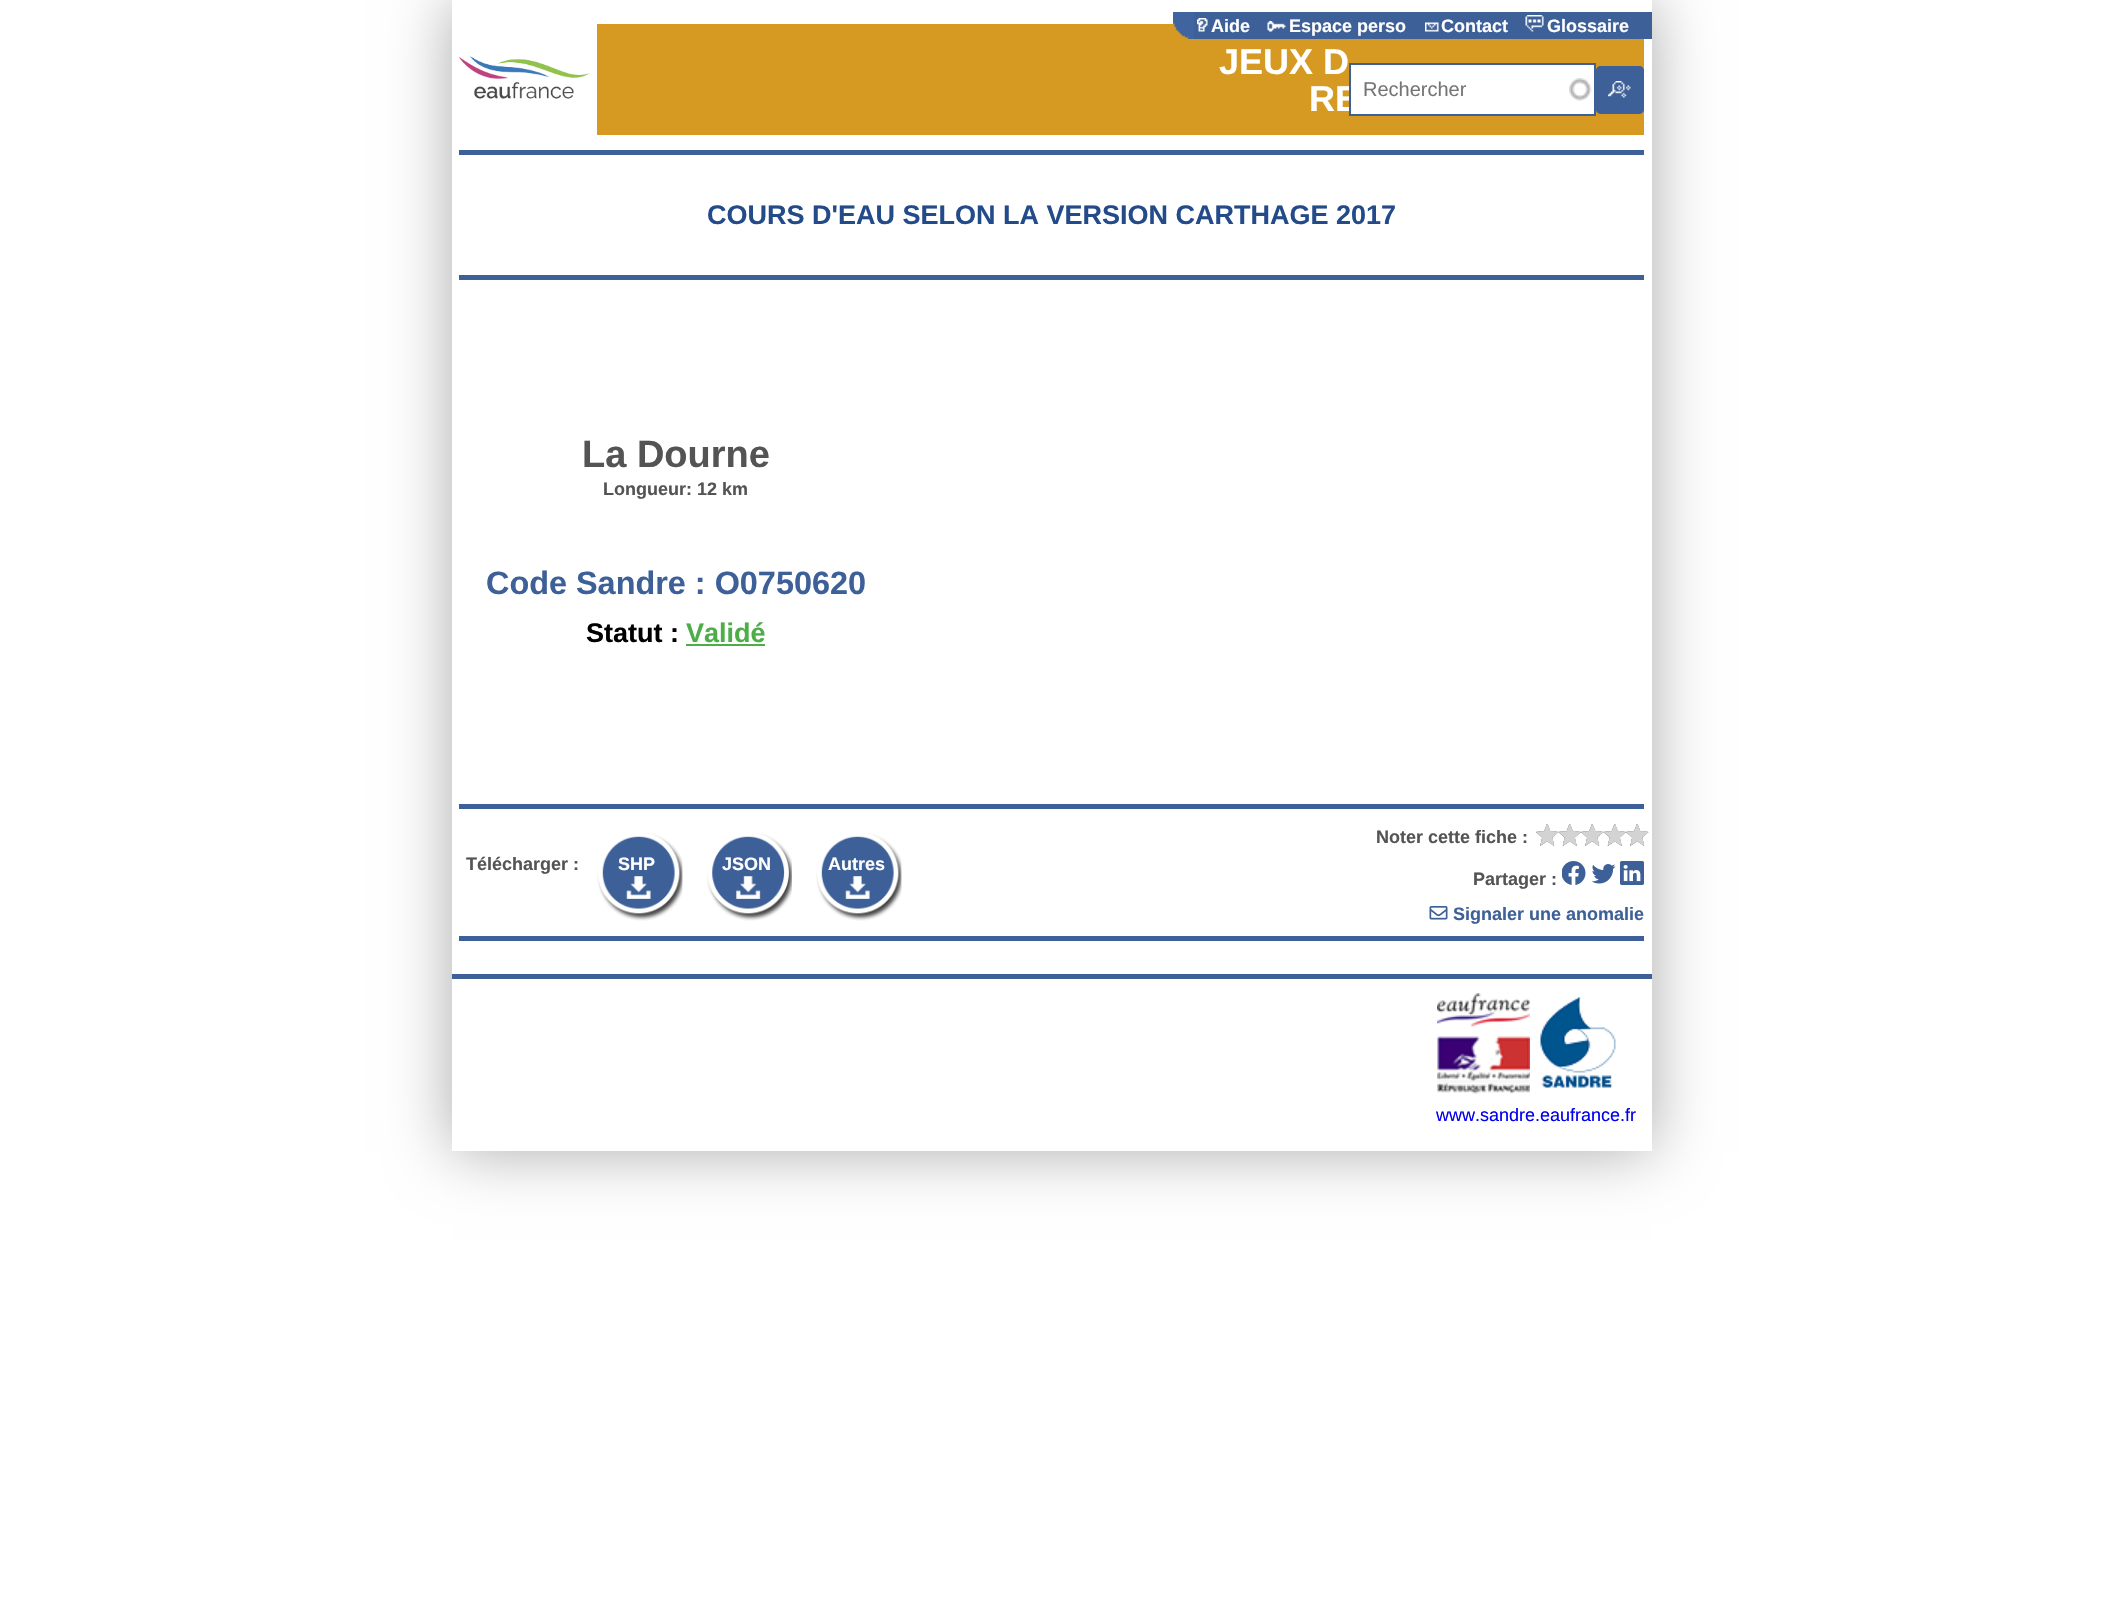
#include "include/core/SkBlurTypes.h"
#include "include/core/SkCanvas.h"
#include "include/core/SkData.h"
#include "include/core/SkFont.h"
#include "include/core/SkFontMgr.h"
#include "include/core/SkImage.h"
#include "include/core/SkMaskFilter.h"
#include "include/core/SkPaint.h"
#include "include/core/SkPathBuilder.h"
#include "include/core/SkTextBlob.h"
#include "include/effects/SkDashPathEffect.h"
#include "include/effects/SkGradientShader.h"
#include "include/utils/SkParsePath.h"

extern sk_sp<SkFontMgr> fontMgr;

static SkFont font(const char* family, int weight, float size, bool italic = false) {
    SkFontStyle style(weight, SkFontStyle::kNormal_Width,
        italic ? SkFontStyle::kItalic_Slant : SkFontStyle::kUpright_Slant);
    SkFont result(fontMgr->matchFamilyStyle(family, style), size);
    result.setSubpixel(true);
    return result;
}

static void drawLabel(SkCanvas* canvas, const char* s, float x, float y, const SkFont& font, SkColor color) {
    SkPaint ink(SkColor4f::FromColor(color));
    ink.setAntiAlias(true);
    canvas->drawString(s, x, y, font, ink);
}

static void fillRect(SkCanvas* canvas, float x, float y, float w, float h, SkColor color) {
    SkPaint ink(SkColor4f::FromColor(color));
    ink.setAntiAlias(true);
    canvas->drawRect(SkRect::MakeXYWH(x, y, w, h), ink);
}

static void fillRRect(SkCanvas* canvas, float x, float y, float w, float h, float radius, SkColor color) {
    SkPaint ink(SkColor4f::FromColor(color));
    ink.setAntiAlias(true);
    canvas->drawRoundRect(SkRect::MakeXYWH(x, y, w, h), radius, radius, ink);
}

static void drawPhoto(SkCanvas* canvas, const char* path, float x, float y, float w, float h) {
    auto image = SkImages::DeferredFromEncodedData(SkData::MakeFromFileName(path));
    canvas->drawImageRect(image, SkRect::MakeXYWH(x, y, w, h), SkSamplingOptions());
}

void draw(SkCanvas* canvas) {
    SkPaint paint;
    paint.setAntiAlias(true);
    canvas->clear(0xFFFFFFFF);
    paint.setColor(0xFFAAAAAA);
    paint.setMaskFilter(SkMaskFilter::MakeBlur(kNormal_SkBlurStyle, 30));
    canvas->drawRect(SkRect::MakeXYWH(452, 0, 1200, 1151), paint);
    paint.setMaskFilter(nullptr);
    fillRect(canvas, 452, 0, 1200, 1151, 0xFFFFFFFF);
    drawPhoto(canvas, "assets/img1.png", 459, 56, 131, 52);
    fillRect(canvas, 597, 24, 1047, 111, 0xFFD69A23);
    drawPhoto(canvas, "assets/img2.png", 1173, 12, 21, 27);
    fillRect(canvas, 1194, 12, 458, 27, 0xFF3D6098);
    drawPhoto(canvas, "assets/img3.png", 1197, 18, 11, 14);
    SkFont font1 = font("Liberation Sans", 700, 18);
    drawLabel(canvas, "Aide", 1211, 32, font1, 0xFFFFFFFF);
    drawPhoto(canvas, "assets/img4.png", 1267, 21, 19, 11);
    drawLabel(canvas, "Espace perso", 1289, 32, font1, 0xFFFFFFFF);
    drawPhoto(canvas, "assets/img5.png", 1425, 22, 14, 10);
    drawLabel(canvas, "Contact", 1441, 32, font1, 0xFFFFFFFF);
    drawPhoto(canvas, "assets/img6.png", 1525, 15, 19, 17);
    drawLabel(canvas, "Glossaire", 1547, 32, font1, 0xFFFFFFFF);
    fillRect(canvas, 1351, 65, 243, 49, 0xFFFFFFFF);
    drawPhoto(canvas, "assets/img7.png", 1569, 78, 23, 23);
    SkFont font2 = font("Liberation Sans", 700, 36);
    drawLabel(canvas, "RE", 1309, 111, font2, 0xFFFFFFFF);
    paint.setStroke(true);
    paint.setStrokeWidth(2);
    paint.setColor(0xFF3D6098);
    canvas->drawRect(SkRect::MakeXYWH(1350, 64, 245, 51), paint);
    SkFont font3 = font("Liberation Sans", 400, 20);
    drawLabel(canvas, "Rechercher", 1363, 96, font3, 0xFF757575);
    fillRRect(canvas, 1596, 66, 48, 48, 5, 0xFF3D6098);
    drawPhoto(canvas, "assets/img8.png", 1608, 81, 23, 17);
    canvas->drawRoundRect(SkRect::MakeXYWH(1597, 67, 46, 46), 4, 4, paint);
    drawLabel(canvas, "JEUX D", 1219, 74, font2, 0xFFFFFFFF);
    fillRect(canvas, 459, 150, 1185, 5, 0xFF3D6098);
    fillRect(canvas, 459, 275, 1185, 5, 0xFF3D6098);
    SkFont font4 = font("Liberation Sans", 700, 27);
    drawLabel(canvas, "COURS D'EAU SELON LA VERSION CARTHAGE 2017", 707, 224, font4, 0xFF234B8A);
    fillRect(canvas, 459, 804, 1185, 5, 0xFF3D6098);
    SkFont font5 = font("Liberation Sans", 700, 38);
    drawLabel(canvas, "La Dourne", 582, 467, font5, 0xFF545454);
    drawLabel(canvas, "Longueur: 12 km", 603, 495, font1, 0xFF545454);
    SkFont font6 = font("Liberation Sans", 700, 32.4f);
    drawLabel(canvas, "Code Sandre : O0750620", 486, 594, font6, 0xFF3D6098);
    drawLabel(canvas, "Statut :", 586, 642, font4, 0xFF000000);
    drawLabel(canvas, "Validé", 686, 642, font4, 0xFF4DAD47);
    fillRect(canvas, 686, 644, 79, 2, 0xFF4DAD47);
    drawLabel(canvas, "Noter cette fiche :", 1376, 843, font1, 0xFF545454);
    drawPhoto(canvas, "assets/img9.png", 1536, 824, 23, 22);
    drawPhoto(canvas, "assets/img10.png", 1558, 824, 23, 22);
    drawPhoto(canvas, "assets/img9.png", 1581, 824, 23, 22);
    drawPhoto(canvas, "assets/img10.png", 1603, 824, 23, 22);
    drawPhoto(canvas, "assets/img9.png", 1626, 824, 23, 22);
    fillRect(canvas, 459, 936, 1185, 5, 0xFF3D6098);
    drawLabel(canvas, "Télécharger :", 466, 870, font1, 0xFF545454);
    drawPhoto(canvas, "assets/img11.png", 597, 833, 86, 88);
    drawLabel(canvas, "SHP", 618, 870, font1, 0xFFFFFFFF);
    drawPhoto(canvas, "assets/img12.png", 707, 833, 85, 88);
    drawLabel(canvas, "JSON", 722, 870, font1, 0xFFFFFFFF);
    drawPhoto(canvas, "assets/img11.png", 816, 833, 86, 88);
    drawLabel(canvas, "Autres", 828, 870, font1, 0xFFFFFFFF);
    drawLabel(canvas, "Partager :", 1473, 885, font1, 0xFF545454);
    drawPhoto(canvas, "assets/img13.png", 1562, 861, 24, 24);
    drawPhoto(canvas, "assets/img14.png", 1592, 864, 24, 20);
    drawPhoto(canvas, "assets/img15.png", 1620, 861, 24, 24);
    drawPhoto(canvas, "assets/img16.png", 1429, 906, 19, 14);
    drawLabel(canvas, "Signaler une anomalie", 1453, 920, font1, 0xFF3D6098);
    fillRect(canvas, 452, 974, 1200, 5, 0xFF3D6098);
    drawPhoto(canvas, "assets/img17.png", 1437, 993, 93, 101);
    drawPhoto(canvas, "assets/img18.png", 1540, 997, 76, 91);
    SkFont font7 = font("Liberation Sans", 400, 18);
    drawLabel(canvas, "www.sandre.eaufrance.fr", 1436, 1121, font7, 0xFF0000EE);
}
